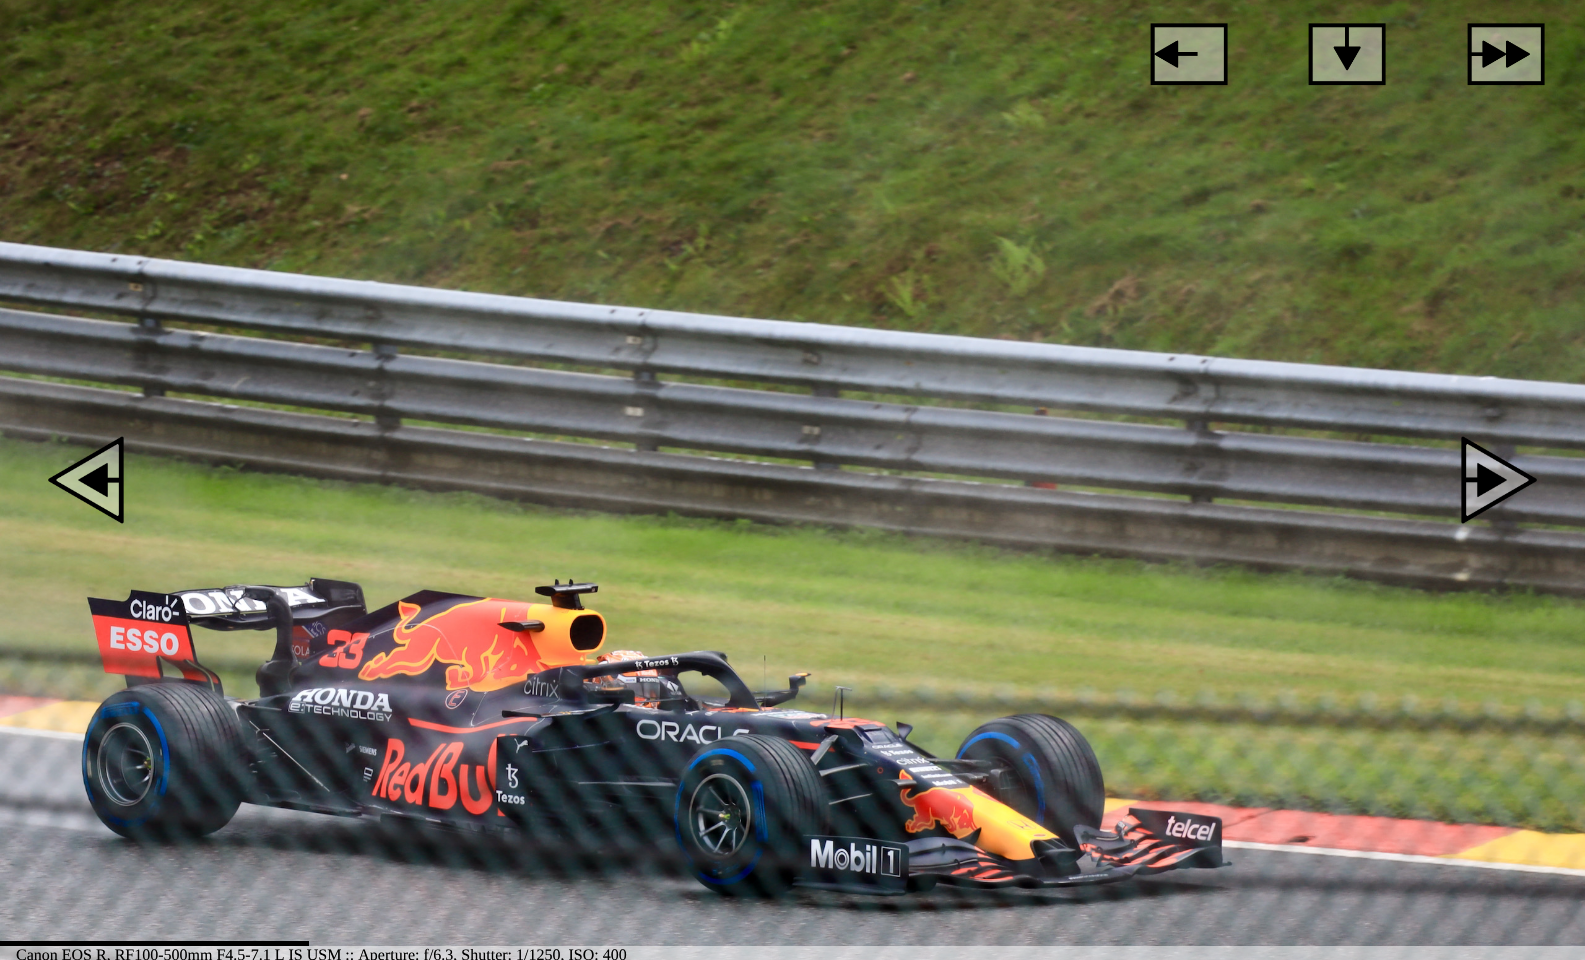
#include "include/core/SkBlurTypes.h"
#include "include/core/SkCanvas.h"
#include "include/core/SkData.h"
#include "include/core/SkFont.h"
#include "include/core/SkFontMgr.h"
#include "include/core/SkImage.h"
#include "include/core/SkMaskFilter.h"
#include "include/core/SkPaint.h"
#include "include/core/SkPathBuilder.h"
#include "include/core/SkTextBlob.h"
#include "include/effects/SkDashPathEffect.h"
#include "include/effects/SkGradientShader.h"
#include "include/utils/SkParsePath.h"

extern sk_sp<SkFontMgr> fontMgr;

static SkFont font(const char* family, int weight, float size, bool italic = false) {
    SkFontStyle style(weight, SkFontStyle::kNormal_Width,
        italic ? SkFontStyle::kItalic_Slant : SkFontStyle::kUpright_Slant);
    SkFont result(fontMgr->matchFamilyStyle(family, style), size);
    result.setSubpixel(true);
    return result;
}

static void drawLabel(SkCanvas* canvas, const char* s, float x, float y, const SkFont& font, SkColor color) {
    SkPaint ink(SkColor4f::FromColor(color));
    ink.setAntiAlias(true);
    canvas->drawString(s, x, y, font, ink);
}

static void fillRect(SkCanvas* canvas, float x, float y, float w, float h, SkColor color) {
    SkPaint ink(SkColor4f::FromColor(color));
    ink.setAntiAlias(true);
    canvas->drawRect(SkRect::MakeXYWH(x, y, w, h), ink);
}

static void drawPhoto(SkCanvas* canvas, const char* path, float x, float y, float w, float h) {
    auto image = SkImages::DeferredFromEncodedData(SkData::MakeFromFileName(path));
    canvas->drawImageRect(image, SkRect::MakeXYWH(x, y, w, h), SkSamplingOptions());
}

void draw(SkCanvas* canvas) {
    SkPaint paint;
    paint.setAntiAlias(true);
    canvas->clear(0xFFFFFFFF);
    drawPhoto(canvas, "assets/img1.png", 0, 0, 1585, 960);
    drawPhoto(canvas, "assets/img2.png", 1150, 23, 78, 63);
    drawPhoto(canvas, "assets/img3.png", 1308, 23, 78, 63);
    drawPhoto(canvas, "assets/img4.png", 1467, 23, 78, 63);
    drawPhoto(canvas, "assets/img5.png", 48, 436, 76, 88);
    drawPhoto(canvas, "assets/img6.png", 1461, 436, 76, 88);
    fillRect(canvas, 0, 941, 309, 5, 0xFF000000);
    fillRect(canvas, 0, 946, 1585, 14, 0x80FFFFFF);
    SkFont font1 = font("Liberation Serif", 400, 16);
    drawLabel(canvas, "Canon EOS R, RF100-500mm F4.5-7.1 L IS USM :: Aperture: f/6.3, Shutter: 1/1250, ISO: 400", 16, 960, font1, 0xFF000000);
}
